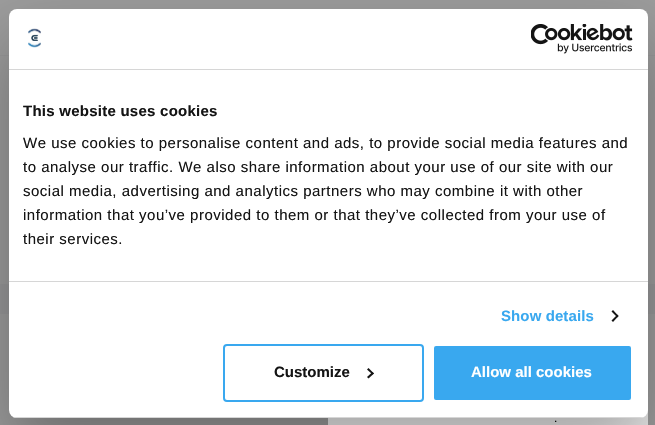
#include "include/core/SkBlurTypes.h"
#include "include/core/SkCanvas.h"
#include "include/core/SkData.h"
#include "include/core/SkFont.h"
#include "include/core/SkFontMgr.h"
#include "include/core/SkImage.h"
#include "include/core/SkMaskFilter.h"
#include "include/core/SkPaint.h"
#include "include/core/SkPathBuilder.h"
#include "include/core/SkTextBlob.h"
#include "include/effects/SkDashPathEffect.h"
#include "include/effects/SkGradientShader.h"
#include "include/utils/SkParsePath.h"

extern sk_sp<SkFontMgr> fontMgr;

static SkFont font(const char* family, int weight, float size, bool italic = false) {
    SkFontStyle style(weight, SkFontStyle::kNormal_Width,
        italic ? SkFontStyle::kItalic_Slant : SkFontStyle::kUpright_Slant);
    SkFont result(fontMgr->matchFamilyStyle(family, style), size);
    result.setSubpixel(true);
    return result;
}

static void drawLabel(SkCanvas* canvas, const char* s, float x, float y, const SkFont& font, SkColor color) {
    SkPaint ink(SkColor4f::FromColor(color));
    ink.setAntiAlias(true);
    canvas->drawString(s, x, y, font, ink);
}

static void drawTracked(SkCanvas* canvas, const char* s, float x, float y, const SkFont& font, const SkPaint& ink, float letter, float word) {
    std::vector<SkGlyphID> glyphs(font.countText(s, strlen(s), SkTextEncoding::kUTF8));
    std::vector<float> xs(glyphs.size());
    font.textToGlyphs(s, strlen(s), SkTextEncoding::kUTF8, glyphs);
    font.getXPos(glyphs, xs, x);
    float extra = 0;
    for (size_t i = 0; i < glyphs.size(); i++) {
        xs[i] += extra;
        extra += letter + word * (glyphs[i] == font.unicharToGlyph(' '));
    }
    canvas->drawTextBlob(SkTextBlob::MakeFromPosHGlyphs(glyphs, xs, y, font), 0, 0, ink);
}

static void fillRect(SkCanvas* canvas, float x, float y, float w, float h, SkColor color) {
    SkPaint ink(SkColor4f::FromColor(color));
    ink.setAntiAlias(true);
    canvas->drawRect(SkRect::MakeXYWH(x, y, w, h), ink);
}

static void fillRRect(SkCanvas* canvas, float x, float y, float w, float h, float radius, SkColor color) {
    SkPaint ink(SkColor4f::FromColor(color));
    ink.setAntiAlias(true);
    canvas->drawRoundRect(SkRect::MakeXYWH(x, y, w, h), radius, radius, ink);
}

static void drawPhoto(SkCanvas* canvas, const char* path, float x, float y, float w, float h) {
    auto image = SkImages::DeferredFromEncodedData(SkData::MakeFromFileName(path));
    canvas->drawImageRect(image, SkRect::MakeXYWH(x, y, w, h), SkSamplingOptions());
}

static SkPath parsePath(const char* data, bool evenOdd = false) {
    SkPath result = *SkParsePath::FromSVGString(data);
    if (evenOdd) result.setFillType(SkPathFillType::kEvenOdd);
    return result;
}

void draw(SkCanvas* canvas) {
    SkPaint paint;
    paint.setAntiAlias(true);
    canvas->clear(0xFF9C9C9C);
    fillRect(canvas, 0, 55, 655, 1, 0xFF979798);
    fillRect(canvas, 0, 284, 655, 30, 0xFF979798);
    fillRect(canvas, 328, 410, 320, 15, 0xFFECECEC);
    paint.setColor(0x4D000000);
    paint.setMaskFilter(SkMaskFilter::MakeBlur(kNormal_SkBlurStyle, 34));
    canvas->drawRoundRect(SkRect::MakeXYWH(9, 41, 639, 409), 8, 8, paint);
    paint.setMaskFilter(nullptr);
    fillRRect(canvas, 9, 9, 639, 409, 8, 0xFFFFFFFF);
    fillRect(canvas, 9, 69, 639, 1, 0xFFD6D6D6);
    drawPhoto(canvas, "assets/img1.png", 28, 28, 13, 20);
    drawPhoto(canvas, "assets/img2.png", 531, 24, 102, 30);
    fillRect(canvas, 9, 281, 639, 1, 0xFFD6D6D6);
    SkFont font1 = font("Liberation Sans", 700, 15);
    paint.setColor(0xFF141414);
    drawTracked(canvas, "This website uses cookies", 23, 116, font1, paint, 0.25f, 0);
    SkFont font2 = font("Liberation Sans", 400, 15);
    drawTracked(canvas, "We use cookies to personalise content and ads, to provide social media features and", 23, 148, font2, paint, 0.5f, 0);
    drawTracked(canvas, "to analyse our traffic. We also share information about your use of our site with our", 23, 172, font2, paint, 0.5f, 0);
    drawTracked(canvas, "social media, advertising and analytics partners who may combine it with other", 23, 196, font2, paint, 0.5f, 0);
    drawTracked(canvas, "information that you’ve provided to them or that they’ve collected from your use of", 23, 220, font2, paint, 0.5f, 0);
    drawTracked(canvas, "their services.", 23, 244, font2, paint, 0.5f, 0);
    paint.setColor(0xFF39A8EF);
    drawTracked(canvas, "Show details", 501, 321, font1, paint, 0.1f, 0);
    paint.setColor(0xFF141414);
    canvas->drawPath(parsePath("M613 310L618.5 316L617.5 317.5L611.5 311.5Z"), paint);
    canvas->drawPath(parsePath("M617.5 314.5L618.5 316L613 322L611.5 320.5Z"), paint);
    canvas->save();
    canvas->clipPath(parsePath("M17 9H640C644.5 9 648 12.5 648 17V410C648 414.5 644.5 418 640 418H17C12.5 418 9 414.5 9 410V17C9 12.5 12.5 9 17 9Z"), true);
    fillRect(canvas, 9, 417, 639, 1, 0xFFD6D6D6);
    canvas->restore();
    paint.setStroke(true);
    paint.setStrokeWidth(2);
    paint.setColor(0xFF39A8EF);
    canvas->drawRoundRect(SkRect::MakeXYWH(224, 345, 199, 56), 3, 3, paint);
    drawLabel(canvas, "Customize", 274, 377, font1, 0xFF141414);
    paint.setStroke(false);
    paint.setColor(0xFF141414);
    canvas->drawPath(parsePath("M368.5 368L374 373.5L372.5 374.5L367 369.5Z"), paint);
    canvas->drawPath(parsePath("M372.5 372L374 373.5L368.5 378.5L367 377Z"), paint);
    paint.setColor(0xFF39A8EF);
    canvas->drawRoundRect(SkRect::MakeXYWH(433, 345, 199, 56), 3, 3, paint);
    paint.setStroke(true);
    paint.setColor(0xFFFFFFFF);
    canvas->drawRoundRect(SkRect::MakeXYWH(433, 345, 199, 56), 3, 3, paint);
    drawLabel(canvas, "Allow all cookies", 471, 377, font1, 0xFFFFFFFF);
    SkFont font3 = font("Liberation Sans", 400, 12);
    drawLabel(canvas, ".", 554, 422, font3, 0xFF000000);
}
